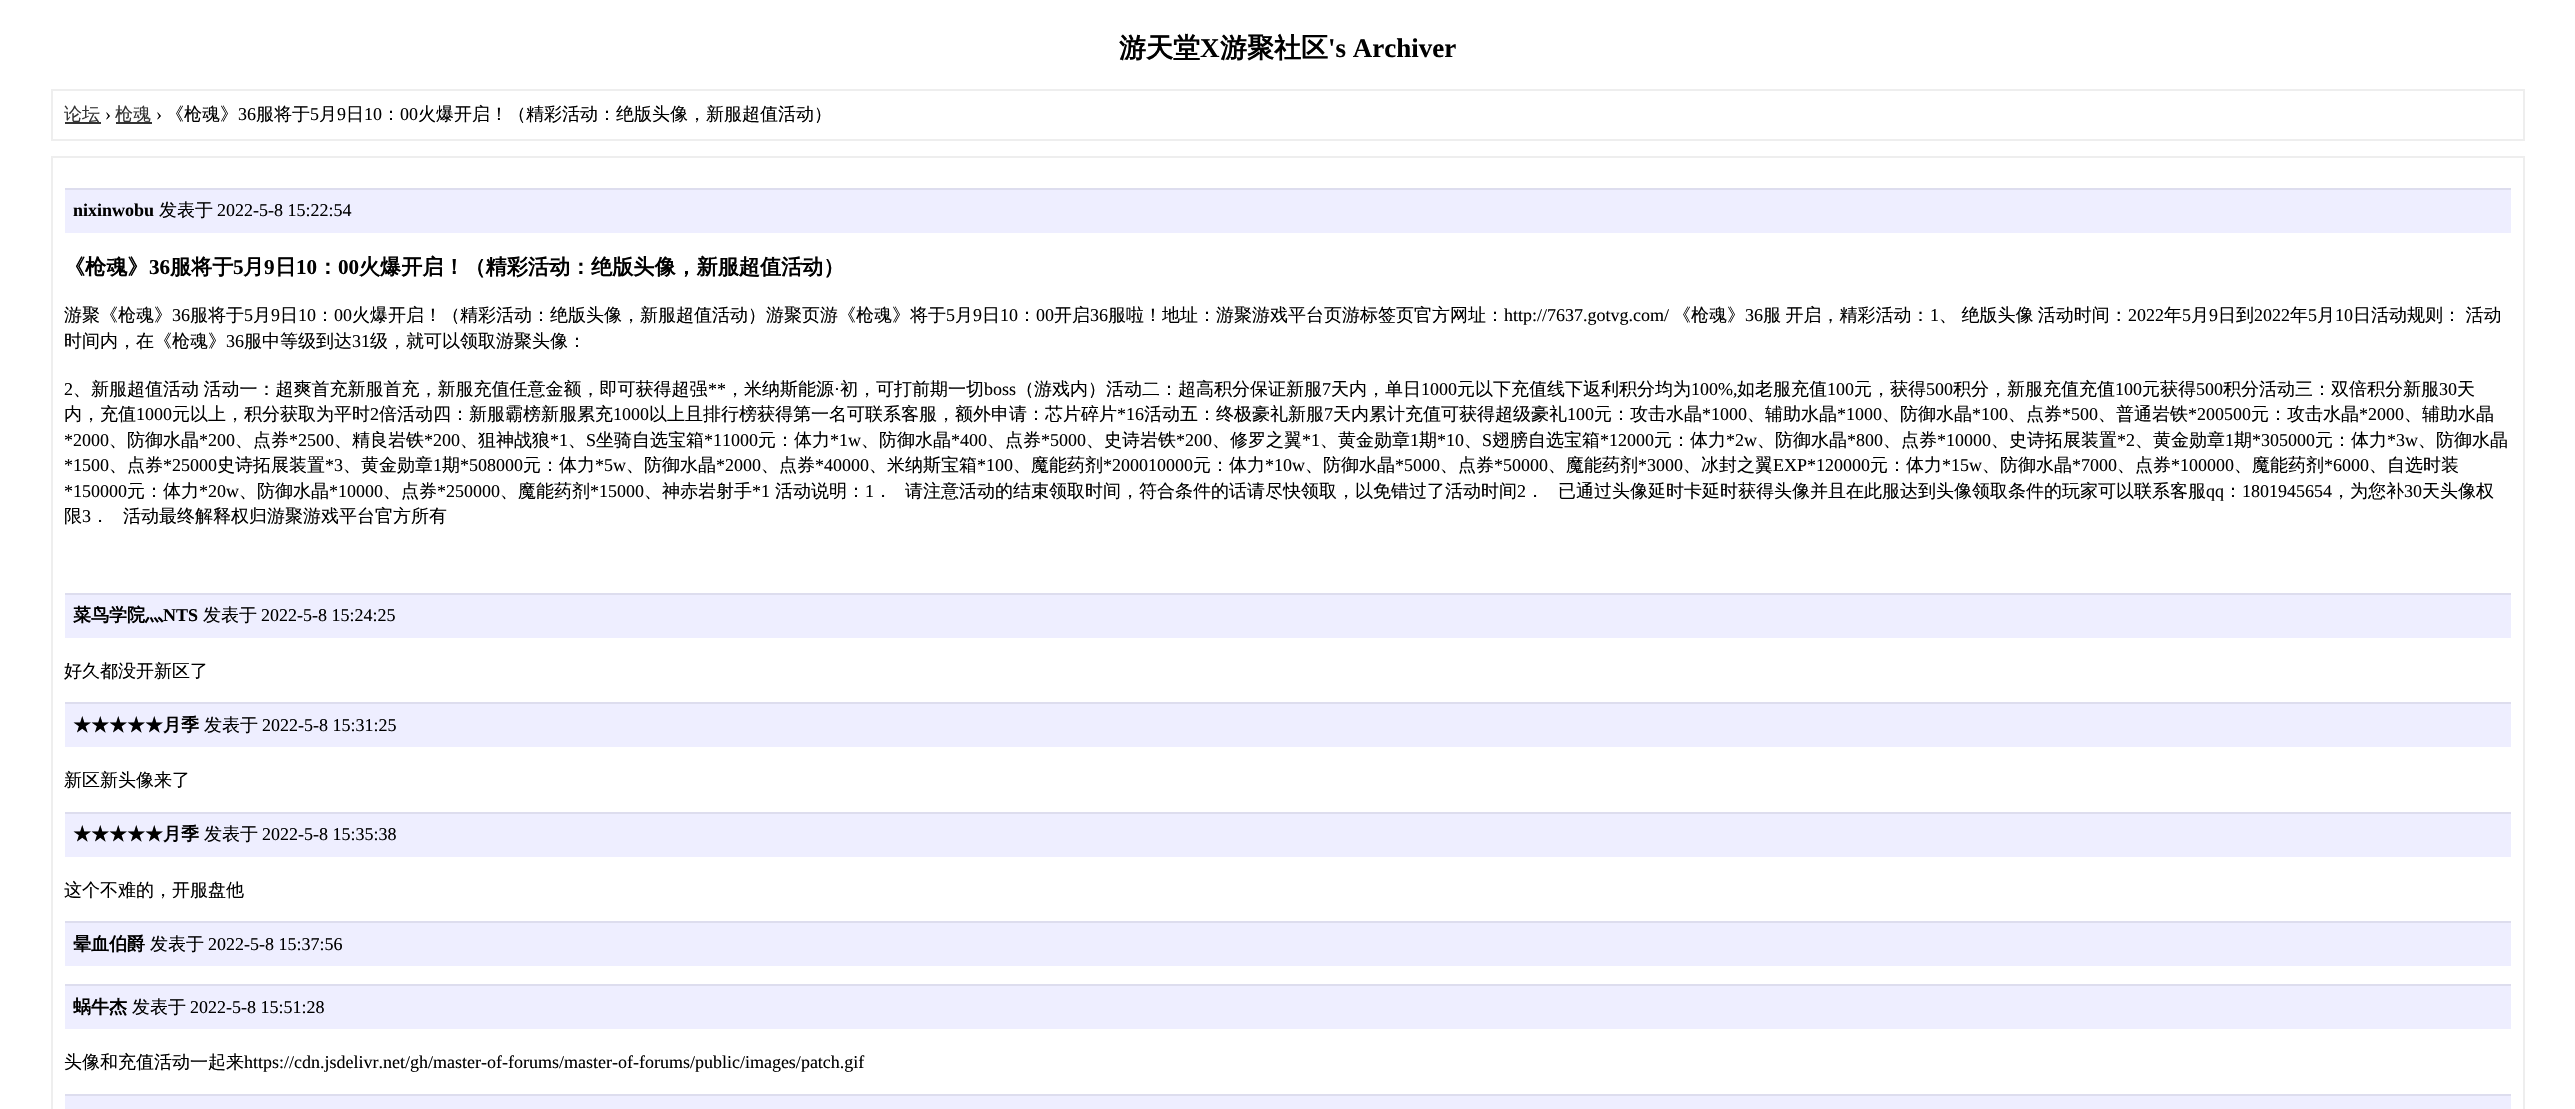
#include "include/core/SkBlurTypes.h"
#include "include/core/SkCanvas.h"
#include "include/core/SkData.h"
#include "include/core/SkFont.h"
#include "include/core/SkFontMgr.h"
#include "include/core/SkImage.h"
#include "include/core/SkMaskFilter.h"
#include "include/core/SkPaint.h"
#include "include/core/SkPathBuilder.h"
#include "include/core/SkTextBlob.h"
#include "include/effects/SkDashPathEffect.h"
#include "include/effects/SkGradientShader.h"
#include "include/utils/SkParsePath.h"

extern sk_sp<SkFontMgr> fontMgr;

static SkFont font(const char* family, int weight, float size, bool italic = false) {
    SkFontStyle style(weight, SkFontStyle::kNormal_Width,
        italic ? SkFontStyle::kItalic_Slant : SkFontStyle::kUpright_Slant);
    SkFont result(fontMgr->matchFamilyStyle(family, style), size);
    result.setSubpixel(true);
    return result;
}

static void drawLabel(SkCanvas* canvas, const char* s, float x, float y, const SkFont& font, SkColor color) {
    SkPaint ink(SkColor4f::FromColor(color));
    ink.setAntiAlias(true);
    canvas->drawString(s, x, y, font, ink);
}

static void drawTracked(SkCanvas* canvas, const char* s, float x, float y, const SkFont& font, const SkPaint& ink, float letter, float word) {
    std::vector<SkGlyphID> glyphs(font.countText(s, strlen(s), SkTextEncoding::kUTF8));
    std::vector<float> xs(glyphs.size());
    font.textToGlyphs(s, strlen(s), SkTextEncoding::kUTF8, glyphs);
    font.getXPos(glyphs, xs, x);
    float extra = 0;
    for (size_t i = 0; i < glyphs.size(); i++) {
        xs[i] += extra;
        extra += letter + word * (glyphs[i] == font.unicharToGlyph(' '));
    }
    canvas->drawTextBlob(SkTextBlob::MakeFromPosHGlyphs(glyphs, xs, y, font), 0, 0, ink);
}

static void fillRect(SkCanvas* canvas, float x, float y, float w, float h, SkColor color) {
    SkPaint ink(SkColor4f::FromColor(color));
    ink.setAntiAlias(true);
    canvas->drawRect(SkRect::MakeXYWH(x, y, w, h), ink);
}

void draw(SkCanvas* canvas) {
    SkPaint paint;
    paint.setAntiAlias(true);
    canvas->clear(0xFFFFFFFF);
    SkFont font1 = font("WenQuanYi Zen Hei", 700, 27);
    drawLabel(canvas, "游天堂", 1119, 57, font1, 0xFF000000);
    SkFont font2 = font("Liberation Serif", 700, 27);
    drawLabel(canvas, "X", 1200, 57, font2, 0xFF000000);
    drawLabel(canvas, "游聚社区", 1220, 57, font1, 0xFF000000);
    drawLabel(canvas, "'s Archiver", 1328, 57, font2, 0xFF000000);
    paint.setStroke(true);
    paint.setStrokeWidth(2);
    paint.setColor(0xFFEEEEEE);
    canvas->drawRect(SkRect::MakeXYWH(52, 90, 2472, 50), paint);
    fillRect(canvas, 65, 122, 36, 2, 0xFF333333);
    SkFont font3 = font("WenQuanYi Zen Hei", 500, 18);
    drawLabel(canvas, "论坛", 64, 120, font3, 0xFF333333);
    SkFont font4 = font("Liberation Serif", 400, 18);
    drawLabel(canvas, "›", 105, 120, font4, 0xFF000000);
    fillRect(canvas, 116, 122, 36, 2, 0xFF333333);
    drawLabel(canvas, "枪魂", 115, 120, font3, 0xFF333333);
    drawLabel(canvas, "›", 156, 120, font4, 0xFF000000);
    drawLabel(canvas, "《枪魂》", 166, 120, font3, 0xFF000000);
    drawLabel(canvas, "36", 238, 120, font4, 0xFF000000);
    drawLabel(canvas, "服将于", 256, 120, font3, 0xFF000000);
    drawLabel(canvas, "5", 310, 120, font4, 0xFF000000);
    drawLabel(canvas, "月", 319, 120, font3, 0xFF000000);
    drawLabel(canvas, "9", 337, 120, font4, 0xFF000000);
    drawLabel(canvas, "日", 346, 120, font3, 0xFF000000);
    drawLabel(canvas, "10", 364, 120, font4, 0xFF000000);
    drawLabel(canvas, "：", 382, 120, font3, 0xFF000000);
    drawLabel(canvas, "00", 400, 120, font4, 0xFF000000);
    drawLabel(canvas, "火爆开启！（精彩活动：绝版头像，新服超值活动）", 418, 120, font3, 0xFF000000);
    canvas->drawRect(SkRect::MakeXYWH(52, 157, 2472, 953), paint);
    fillRect(canvas, 65, 190, 2446, 43, 0xFFEEEEFF);
    fillRect(canvas, 65, 188, 2446, 2, 0xFFDDDDEE);
    SkFont font5 = font("Liberation Serif", 700, 18);
    drawLabel(canvas, "nixinwobu", 73, 216, font5, 0xFF000000);
    drawLabel(canvas, "发表于", 159, 216, font3, 0xFF000000);
    drawLabel(canvas, "2022-5-8 15:22:54", 217, 216, font4, 0xFF000000);
    SkFont font6 = font("WenQuanYi Zen Hei", 700, 21.1f);
    drawLabel(canvas, "《枪魂》", 64, 274, font6, 0xFF000000);
    SkFont font7 = font("Liberation Serif", 700, 21.1f);
    drawLabel(canvas, "36", 149, 274, font7, 0xFF000000);
    drawLabel(canvas, "服将于", 170, 274, font6, 0xFF000000);
    drawLabel(canvas, "5", 233, 274, font7, 0xFF000000);
    drawLabel(canvas, "月", 243, 274, font6, 0xFF000000);
    drawLabel(canvas, "9", 264, 274, font7, 0xFF000000);
    drawLabel(canvas, "日", 275, 274, font6, 0xFF000000);
    drawLabel(canvas, "10", 296, 274, font7, 0xFF000000);
    drawLabel(canvas, "：", 317, 274, font6, 0xFF000000);
    drawLabel(canvas, "00", 338, 274, font7, 0xFF000000);
    drawLabel(canvas, "火爆开启！（精彩活动：绝版头像，新服超值活动）", 359, 274, font6, 0xFF000000);
    drawLabel(canvas, "游聚《枪魂》", 64, 321, font3, 0xFF000000);
    drawLabel(canvas, "36", 172, 321, font4, 0xFF000000);
    drawLabel(canvas, "服将于", 190, 321, font3, 0xFF000000);
    drawLabel(canvas, "5", 244, 321, font4, 0xFF000000);
    drawLabel(canvas, "月", 253, 321, font3, 0xFF000000);
    drawLabel(canvas, "9", 271, 321, font4, 0xFF000000);
    drawLabel(canvas, "日", 280, 321, font3, 0xFF000000);
    drawLabel(canvas, "10", 298, 321, font4, 0xFF000000);
    drawLabel(canvas, "：", 316, 321, font3, 0xFF000000);
    drawLabel(canvas, "00", 334, 321, font4, 0xFF000000);
    drawLabel(canvas, "火爆开启！（精彩活动：绝版头像，新服超值活动）游聚页游《枪魂》将于", 352, 321, font3, 0xFF000000);
    drawLabel(canvas, "5", 946, 321, font4, 0xFF000000);
    drawLabel(canvas, "月", 955, 321, font3, 0xFF000000);
    drawLabel(canvas, "9", 973, 321, font4, 0xFF000000);
    drawLabel(canvas, "日", 982, 321, font3, 0xFF000000);
    drawLabel(canvas, "10", 1000, 321, font4, 0xFF000000);
    drawLabel(canvas, "：", 1018, 321, font3, 0xFF000000);
    drawLabel(canvas, "00", 1036, 321, font4, 0xFF000000);
    drawLabel(canvas, "开启", 1054, 321, font3, 0xFF000000);
    drawLabel(canvas, "36", 1090, 321, font4, 0xFF000000);
    drawLabel(canvas, "服啦！地址：游聚游戏平台页游标签页官方网址：", 1108, 321, font3, 0xFF000000);
    drawLabel(canvas, "http://7637.gotvg.com/", 1504, 321, font4, 0xFF000000);
    drawLabel(canvas, "《枪魂》", 1673, 321, font3, 0xFF000000);
    drawLabel(canvas, "36", 1745, 321, font4, 0xFF000000);
    paint.setStroke(false);
    paint.setColor(0xFF000000);
    drawTracked(canvas, "服 开启，精彩活动：", 1763, 321, font3, paint, 0, -1);
    drawLabel(canvas, "1", 1930, 321, font4, 0xFF000000);
    drawTracked(canvas, "、 绝版头像 活动时间：", 1939, 321, font3, paint, 0, -1);
    drawLabel(canvas, "2022", 2128, 321, font4, 0xFF000000);
    drawLabel(canvas, "年", 2164, 321, font3, 0xFF000000);
    drawLabel(canvas, "5", 2182, 321, font4, 0xFF000000);
    drawLabel(canvas, "月", 2191, 321, font3, 0xFF000000);
    drawLabel(canvas, "9", 2209, 321, font4, 0xFF000000);
    drawLabel(canvas, "日到", 2218, 321, font3, 0xFF000000);
    drawLabel(canvas, "2022", 2254, 321, font4, 0xFF000000);
    drawLabel(canvas, "年", 2290, 321, font3, 0xFF000000);
    drawLabel(canvas, "5", 2308, 321, font4, 0xFF000000);
    drawLabel(canvas, "月", 2317, 321, font3, 0xFF000000);
    drawLabel(canvas, "10", 2335, 321, font4, 0xFF000000);
    drawTracked(canvas, "日活动规则： 活动", 2353, 321, font3, paint, 0, -1);
    drawLabel(canvas, "时间内，在《枪魂》", 64, 347, font3, 0xFF000000);
    drawLabel(canvas, "36", 226, 347, font4, 0xFF000000);
    drawLabel(canvas, "服中等级到达", 244, 347, font3, 0xFF000000);
    drawLabel(canvas, "31", 352, 347, font4, 0xFF000000);
    drawLabel(canvas, "级，就可以领取游聚头像：", 370, 347, font3, 0xFF000000);
    drawLabel(canvas, "2", 64, 395, font4, 0xFF000000);
    drawTracked(canvas, "、新服超值活动 活动一：超爽首充新服首充，新服充值任意金额，即可获得超强", 73, 395, font3, paint, 0, -1);
    drawLabel(canvas, "**", 708, 395, font4, 0xFF000000);
    drawLabel(canvas, "，米纳斯能源", 726, 395, font3, 0xFF000000);
    drawLabel(canvas, "·", 834, 395, font4, 0xFF000000);
    drawLabel(canvas, "初，可打前期一切", 840, 395, font3, 0xFF000000);
    drawLabel(canvas, "boss", 984, 395, font4, 0xFF000000);
    drawLabel(canvas, "（游戏内）活动二：超高积分保证新服", 1016, 395, font3, 0xFF000000);
    drawLabel(canvas, "7", 1322, 395, font4, 0xFF000000);
    drawLabel(canvas, "天内，单日", 1331, 395, font3, 0xFF000000);
    drawLabel(canvas, "1000", 1421, 395, font4, 0xFF000000);
    drawLabel(canvas, "元以下充值线下返利积分均为", 1457, 395, font3, 0xFF000000);
    drawLabel(canvas, "100%,", 1691, 395, font4, 0xFF000000);
    drawLabel(canvas, "如老服充值", 1737, 395, font3, 0xFF000000);
    drawLabel(canvas, "100", 1827, 395, font4, 0xFF000000);
    drawLabel(canvas, "元，获得", 1854, 395, font3, 0xFF000000);
    drawLabel(canvas, "500", 1926, 395, font4, 0xFF000000);
    drawLabel(canvas, "积分，新服充值充值", 1953, 395, font3, 0xFF000000);
    drawLabel(canvas, "100", 2115, 395, font4, 0xFF000000);
    drawLabel(canvas, "元获得", 2142, 395, font3, 0xFF000000);
    drawLabel(canvas, "500", 2196, 395, font4, 0xFF000000);
    drawLabel(canvas, "积分活动三：双倍积分新服", 2223, 395, font3, 0xFF000000);
    drawLabel(canvas, "30", 2439, 395, font4, 0xFF000000);
    drawLabel(canvas, "天", 2457, 395, font3, 0xFF000000);
    drawLabel(canvas, "内，充值", 64, 420, font3, 0xFF000000);
    drawLabel(canvas, "1000", 136, 420, font4, 0xFF000000);
    drawLabel(canvas, "元以上，积分获取为平时", 172, 420, font3, 0xFF000000);
    drawLabel(canvas, "2", 370, 420, font4, 0xFF000000);
    drawLabel(canvas, "倍活动四：新服霸榜新服累充", 379, 420, font3, 0xFF000000);
    drawLabel(canvas, "1000", 613, 420, font4, 0xFF000000);
    drawLabel(canvas, "以上且排行榜获得第一名可联系客服，额外申请：芯片碎片", 649, 420, font3, 0xFF000000);
    drawLabel(canvas, "*16", 1117, 420, font4, 0xFF000000);
    drawLabel(canvas, "活动五：终极豪礼新服", 1144, 420, font3, 0xFF000000);
    drawLabel(canvas, "7", 1324, 420, font4, 0xFF000000);
    drawLabel(canvas, "天内累计充值可获得超级豪礼", 1333, 420, font3, 0xFF000000);
    drawLabel(canvas, "100", 1567, 420, font4, 0xFF000000);
    drawLabel(canvas, "元：攻击水晶", 1594, 420, font3, 0xFF000000);
    drawLabel(canvas, "*1000", 1702, 420, font4, 0xFF000000);
    drawLabel(canvas, "、辅助水晶", 1747, 420, font3, 0xFF000000);
    drawLabel(canvas, "*1000", 1837, 420, font4, 0xFF000000);
    drawLabel(canvas, "、防御水晶", 1882, 420, font3, 0xFF000000);
    drawLabel(canvas, "*100", 1972, 420, font4, 0xFF000000);
    drawLabel(canvas, "、点券", 2008, 420, font3, 0xFF000000);
    drawLabel(canvas, "*500", 2062, 420, font4, 0xFF000000);
    drawLabel(canvas, "、普通岩铁", 2098, 420, font3, 0xFF000000);
    drawLabel(canvas, "*200500", 2188, 420, font4, 0xFF000000);
    drawLabel(canvas, "元：攻击水晶", 2251, 420, font3, 0xFF000000);
    drawLabel(canvas, "*2000", 2359, 420, font4, 0xFF000000);
    drawLabel(canvas, "、辅助水晶", 2404, 420, font3, 0xFF000000);
    drawLabel(canvas, "*2000", 64, 446, font4, 0xFF000000);
    drawLabel(canvas, "、防御水晶", 109, 446, font3, 0xFF000000);
    drawLabel(canvas, "*200", 199, 446, font4, 0xFF000000);
    drawLabel(canvas, "、点券", 235, 446, font3, 0xFF000000);
    drawLabel(canvas, "*2500", 289, 446, font4, 0xFF000000);
    drawLabel(canvas, "、精良岩铁", 334, 446, font3, 0xFF000000);
    drawLabel(canvas, "*200", 424, 446, font4, 0xFF000000);
    drawLabel(canvas, "、狙神战狼", 460, 446, font3, 0xFF000000);
    drawLabel(canvas, "*1", 550, 446, font4, 0xFF000000);
    drawLabel(canvas, "、", 568, 446, font3, 0xFF000000);
    drawLabel(canvas, "S", 586, 446, font4, 0xFF000000);
    drawLabel(canvas, "坐骑自选宝箱", 596, 446, font3, 0xFF000000);
    drawLabel(canvas, "*11000", 704, 446, font4, 0xFF000000);
    drawLabel(canvas, "元：体力", 758, 446, font3, 0xFF000000);
    drawLabel(canvas, "*1w", 830, 446, font4, 0xFF000000);
    drawLabel(canvas, "、防御水晶", 861, 446, font3, 0xFF000000);
    drawLabel(canvas, "*400", 951, 446, font4, 0xFF000000);
    drawLabel(canvas, "、点券", 987, 446, font3, 0xFF000000);
    drawLabel(canvas, "*5000", 1041, 446, font4, 0xFF000000);
    drawLabel(canvas, "、史诗岩铁", 1086, 446, font3, 0xFF000000);
    drawLabel(canvas, "*200", 1176, 446, font4, 0xFF000000);
    drawLabel(canvas, "、修罗之翼", 1212, 446, font3, 0xFF000000);
    drawLabel(canvas, "*1", 1302, 446, font4, 0xFF000000);
    drawLabel(canvas, "、黄金勋章", 1320, 446, font3, 0xFF000000);
    drawLabel(canvas, "1", 1410, 446, font4, 0xFF000000);
    drawLabel(canvas, "期", 1419, 446, font3, 0xFF000000);
    drawLabel(canvas, "*10", 1437, 446, font4, 0xFF000000);
    drawLabel(canvas, "、", 1464, 446, font3, 0xFF000000);
    drawLabel(canvas, "S", 1482, 446, font4, 0xFF000000);
    drawLabel(canvas, "翅膀自选宝箱", 1492, 446, font3, 0xFF000000);
    drawLabel(canvas, "*12000", 1600, 446, font4, 0xFF000000);
    drawLabel(canvas, "元：体力", 1654, 446, font3, 0xFF000000);
    drawLabel(canvas, "*2w", 1726, 446, font4, 0xFF000000);
    drawLabel(canvas, "、防御水晶", 1757, 446, font3, 0xFF000000);
    drawLabel(canvas, "*800", 1847, 446, font4, 0xFF000000);
    drawLabel(canvas, "、点券", 1883, 446, font3, 0xFF000000);
    drawLabel(canvas, "*10000", 1937, 446, font4, 0xFF000000);
    drawLabel(canvas, "、史诗拓展装置", 1991, 446, font3, 0xFF000000);
    drawLabel(canvas, "*2", 2117, 446, font4, 0xFF000000);
    drawLabel(canvas, "、黄金勋章", 2135, 446, font3, 0xFF000000);
    drawLabel(canvas, "1", 2225, 446, font4, 0xFF000000);
    drawLabel(canvas, "期", 2234, 446, font3, 0xFF000000);
    drawLabel(canvas, "*305000", 2252, 446, font4, 0xFF000000);
    drawLabel(canvas, "元：体力", 2315, 446, font3, 0xFF000000);
    drawLabel(canvas, "*3w", 2387, 446, font4, 0xFF000000);
    drawLabel(canvas, "、防御水晶", 2418, 446, font3, 0xFF000000);
    drawLabel(canvas, "*1500", 64, 471, font4, 0xFF000000);
    drawLabel(canvas, "、点券", 109, 471, font3, 0xFF000000);
    drawLabel(canvas, "*25000", 163, 471, font4, 0xFF000000);
    drawLabel(canvas, "史诗拓展装置", 217, 471, font3, 0xFF000000);
    drawLabel(canvas, "*3", 325, 471, font4, 0xFF000000);
    drawLabel(canvas, "、黄金勋章", 343, 471, font3, 0xFF000000);
    drawLabel(canvas, "1", 433, 471, font4, 0xFF000000);
    drawLabel(canvas, "期", 442, 471, font3, 0xFF000000);
    drawLabel(canvas, "*508000", 460, 471, font4, 0xFF000000);
    drawLabel(canvas, "元：体力", 523, 471, font3, 0xFF000000);
    drawLabel(canvas, "*5w", 595, 471, font4, 0xFF000000);
    drawLabel(canvas, "、防御水晶", 626, 471, font3, 0xFF000000);
    drawLabel(canvas, "*2000", 716, 471, font4, 0xFF000000);
    drawLabel(canvas, "、点券", 761, 471, font3, 0xFF000000);
    drawLabel(canvas, "*40000", 815, 471, font4, 0xFF000000);
    drawLabel(canvas, "、米纳斯宝箱", 869, 471, font3, 0xFF000000);
    drawLabel(canvas, "*100", 977, 471, font4, 0xFF000000);
    drawLabel(canvas, "、魔能药剂", 1013, 471, font3, 0xFF000000);
    drawLabel(canvas, "*200010000", 1103, 471, font4, 0xFF000000);
    drawLabel(canvas, "元：体力", 1193, 471, font3, 0xFF000000);
    drawLabel(canvas, "*10w", 1265, 471, font4, 0xFF000000);
    drawLabel(canvas, "、防御水晶", 1305, 471, font3, 0xFF000000);
    drawLabel(canvas, "*5000", 1395, 471, font4, 0xFF000000);
    drawLabel(canvas, "、点券", 1440, 471, font3, 0xFF000000);
    drawLabel(canvas, "*50000", 1494, 471, font4, 0xFF000000);
    drawLabel(canvas, "、魔能药剂", 1548, 471, font3, 0xFF000000);
    drawLabel(canvas, "*3000", 1638, 471, font4, 0xFF000000);
    drawLabel(canvas, "、冰封之翼", 1683, 471, font3, 0xFF000000);
    drawLabel(canvas, "EXP*120000", 1773, 471, font4, 0xFF000000);
    drawLabel(canvas, "元：体力", 1870, 471, font3, 0xFF000000);
    drawLabel(canvas, "*15w", 1942, 471, font4, 0xFF000000);
    drawLabel(canvas, "、防御水晶", 1982, 471, font3, 0xFF000000);
    drawLabel(canvas, "*7000", 2072, 471, font4, 0xFF000000);
    drawLabel(canvas, "、点券", 2117, 471, font3, 0xFF000000);
    drawLabel(canvas, "*100000", 2171, 471, font4, 0xFF000000);
    drawLabel(canvas, "、魔能药剂", 2234, 471, font3, 0xFF000000);
    drawLabel(canvas, "*6000", 2324, 471, font4, 0xFF000000);
    drawLabel(canvas, "、自选时装", 2369, 471, font3, 0xFF000000);
    drawLabel(canvas, "*150000", 64, 497, font4, 0xFF000000);
    drawLabel(canvas, "元：体力", 127, 497, font3, 0xFF000000);
    drawLabel(canvas, "*20w", 199, 497, font4, 0xFF000000);
    drawLabel(canvas, "、防御水晶", 239, 497, font3, 0xFF000000);
    drawLabel(canvas, "*10000", 329, 497, font4, 0xFF000000);
    drawLabel(canvas, "、点券", 383, 497, font3, 0xFF000000);
    drawLabel(canvas, "*250000", 437, 497, font4, 0xFF000000);
    drawLabel(canvas, "、魔能药剂", 500, 497, font3, 0xFF000000);
    drawLabel(canvas, "*15000", 590, 497, font4, 0xFF000000);
    drawLabel(canvas, "、神赤岩射手", 644, 497, font3, 0xFF000000);
    drawLabel(canvas, "*1", 752, 497, font4, 0xFF000000);
    drawLabel(canvas, "活动说明：", 775, 497, font3, 0xFF000000);
    drawLabel(canvas, "1", 865, 497, font4, 0xFF000000);
    drawLabel(canvas, "．", 874, 497, font3, 0xFF000000);
    drawLabel(canvas, "请注意活动的结束领取时间，符合条件的话请尽快领取，以免错过了活动时间", 905, 497, font3, 0xFF000000);
    drawLabel(canvas, "2", 1517, 497, font4, 0xFF000000);
    drawLabel(canvas, "．", 1526, 497, font3, 0xFF000000);
    drawLabel(canvas, "已通过头像延时卡延时获得头像并且在此服达到头像领取条件的玩家可以联系客服", 1558, 497, font3, 0xFF000000);
    drawLabel(canvas, "qq", 2206, 497, font4, 0xFF000000);
    drawLabel(canvas, "：", 2224, 497, font3, 0xFF000000);
    drawLabel(canvas, "1801945654", 2242, 497, font4, 0xFF000000);
    drawLabel(canvas, "，为您补", 2332, 497, font3, 0xFF000000);
    drawLabel(canvas, "30", 2404, 497, font4, 0xFF000000);
    drawLabel(canvas, "天头像权", 2422, 497, font3, 0xFF000000);
    drawLabel(canvas, "限", 64, 522, font3, 0xFF000000);
    drawLabel(canvas, "3", 82, 522, font4, 0xFF000000);
    drawLabel(canvas, "．", 91, 522, font3, 0xFF000000);
    drawLabel(canvas, "活动最终解释权归游聚游戏平台官方所有", 123, 522, font3, 0xFF000000);
    fillRect(canvas, 65, 595, 2446, 43, 0xFFEEEEFF);
    fillRect(canvas, 65, 593, 2446, 2, 0xFFDDDDEE);
    SkFont font8 = font("WenQuanYi Zen Hei", 700, 18);
    drawLabel(canvas, "菜鸟学院灬", 73, 621, font8, 0xFF000000);
    drawLabel(canvas, "NTS", 163, 621, font5, 0xFF000000);
    drawLabel(canvas, "发表于", 203, 621, font3, 0xFF000000);
    drawLabel(canvas, "2022-5-8 15:24:25", 261, 621, font4, 0xFF000000);
    drawLabel(canvas, "好久都没开新区了", 64, 677, font3, 0xFF000000);
    fillRect(canvas, 65, 704, 2446, 43, 0xFFEEEEFF);
    fillRect(canvas, 65, 702, 2446, 2, 0xFFDDDDEE);
    drawLabel(canvas, "★★★★★月季", 73, 731, font8, 0xFF000000);
    drawLabel(canvas, "发表于", 204, 731, font3, 0xFF000000);
    drawLabel(canvas, "2022-5-8 15:31:25", 262, 731, font4, 0xFF000000);
    drawLabel(canvas, "新区新头像来了", 64, 786, font3, 0xFF000000);
    fillRect(canvas, 65, 814, 2446, 43, 0xFFEEEEFF);
    fillRect(canvas, 65, 812, 2446, 2, 0xFFDDDDEE);
    drawLabel(canvas, "★★★★★月季", 73, 840, font8, 0xFF000000);
    drawLabel(canvas, "发表于", 204, 840, font3, 0xFF000000);
    drawLabel(canvas, "2022-5-8 15:35:38", 262, 840, font4, 0xFF000000);
    drawLabel(canvas, "这个不难的，开服盘他", 64, 896, font3, 0xFF000000);
    fillRect(canvas, 65, 923, 2446, 43, 0xFFEEEEFF);
    fillRect(canvas, 65, 921, 2446, 2, 0xFFDDDDEE);
    drawLabel(canvas, "晕血伯爵", 73, 950, font8, 0xFF000000);
    drawLabel(canvas, "发表于", 150, 950, font3, 0xFF000000);
    drawLabel(canvas, "2022-5-8 15:37:56", 208, 950, font4, 0xFF000000);
    fillRect(canvas, 65, 986, 2446, 43, 0xFFEEEEFF);
    fillRect(canvas, 65, 984, 2446, 2, 0xFFDDDDEE);
    drawLabel(canvas, "蜗牛杰", 73, 1013, font8, 0xFF000000);
    drawLabel(canvas, "发表于", 132, 1013, font3, 0xFF000000);
    drawLabel(canvas, "2022-5-8 15:51:28", 190, 1013, font4, 0xFF000000);
    drawLabel(canvas, "头像和充值活动一起来", 64, 1068, font3, 0xFF000000);
    drawLabel(canvas, "https://cdn.jsdelivr.net/gh/master-of-forums/master-of-forums/public/images/patch.gif", 244, 1068, font4, 0xFF000000);
    fillRect(canvas, 65, 1096, 2446, 13, 0xFFEEEEFF);
    fillRect(canvas, 65, 1094, 2446, 2, 0xFFDDDDEE);
}
